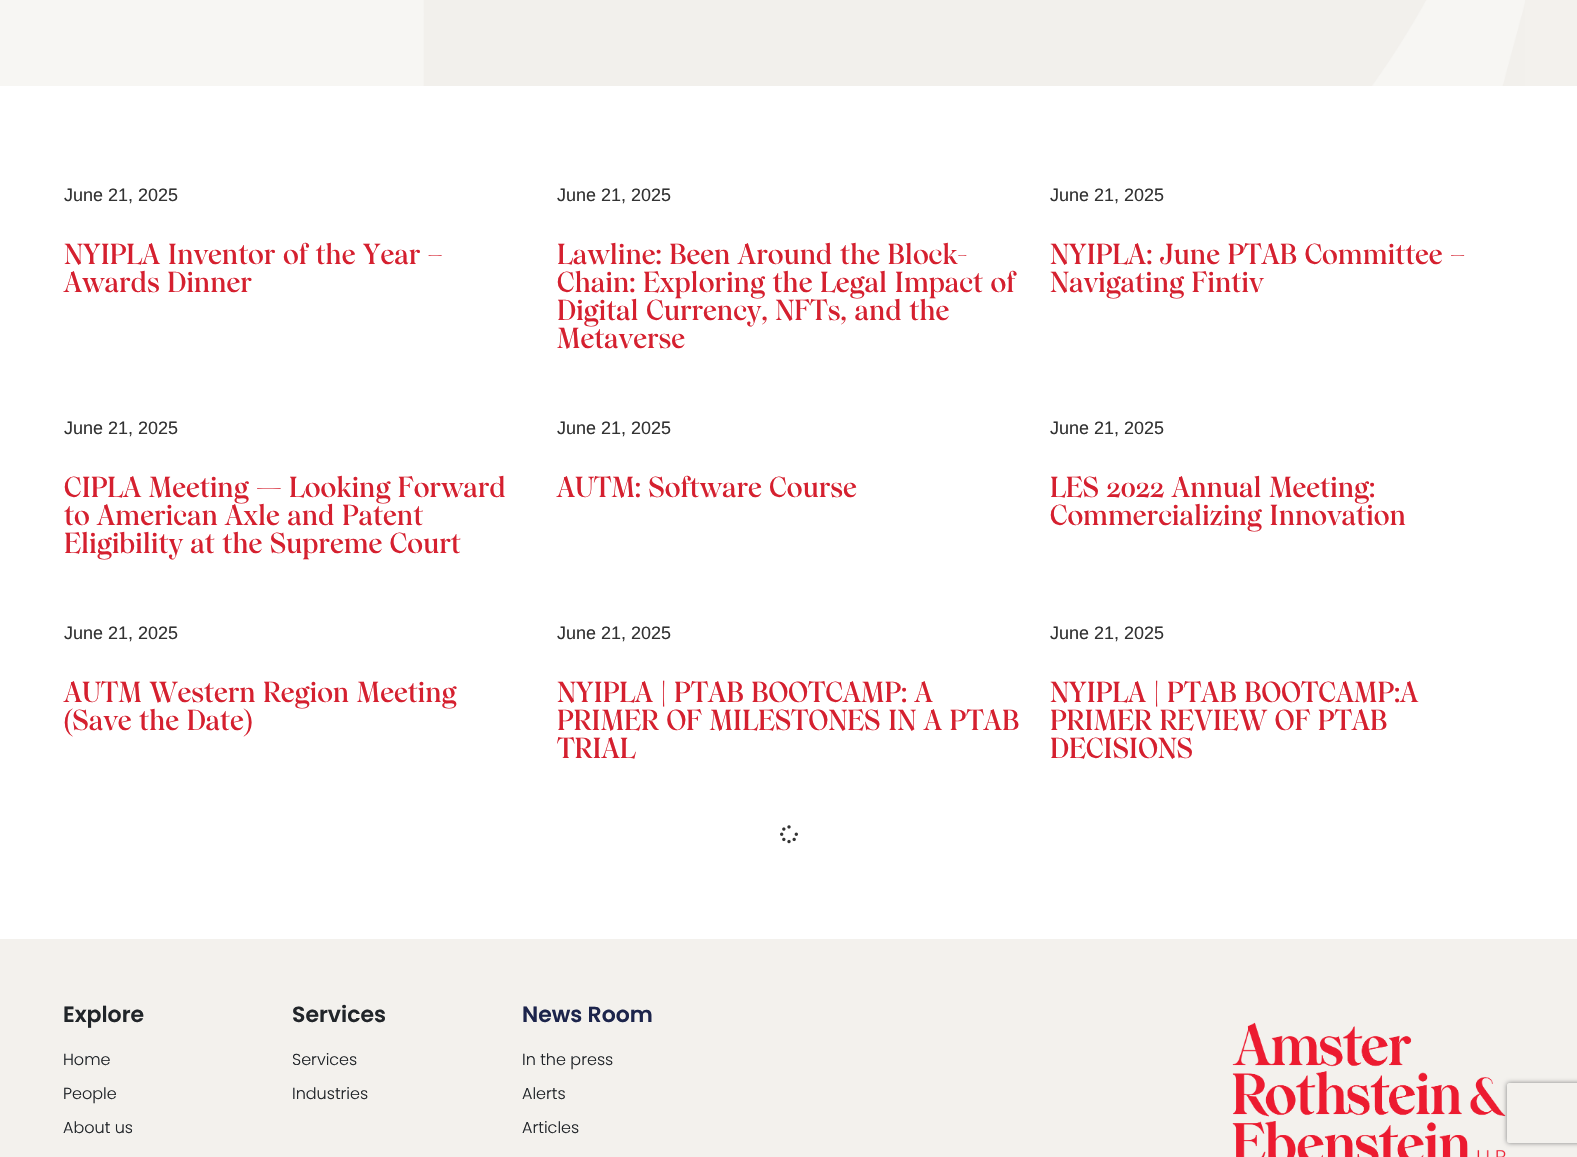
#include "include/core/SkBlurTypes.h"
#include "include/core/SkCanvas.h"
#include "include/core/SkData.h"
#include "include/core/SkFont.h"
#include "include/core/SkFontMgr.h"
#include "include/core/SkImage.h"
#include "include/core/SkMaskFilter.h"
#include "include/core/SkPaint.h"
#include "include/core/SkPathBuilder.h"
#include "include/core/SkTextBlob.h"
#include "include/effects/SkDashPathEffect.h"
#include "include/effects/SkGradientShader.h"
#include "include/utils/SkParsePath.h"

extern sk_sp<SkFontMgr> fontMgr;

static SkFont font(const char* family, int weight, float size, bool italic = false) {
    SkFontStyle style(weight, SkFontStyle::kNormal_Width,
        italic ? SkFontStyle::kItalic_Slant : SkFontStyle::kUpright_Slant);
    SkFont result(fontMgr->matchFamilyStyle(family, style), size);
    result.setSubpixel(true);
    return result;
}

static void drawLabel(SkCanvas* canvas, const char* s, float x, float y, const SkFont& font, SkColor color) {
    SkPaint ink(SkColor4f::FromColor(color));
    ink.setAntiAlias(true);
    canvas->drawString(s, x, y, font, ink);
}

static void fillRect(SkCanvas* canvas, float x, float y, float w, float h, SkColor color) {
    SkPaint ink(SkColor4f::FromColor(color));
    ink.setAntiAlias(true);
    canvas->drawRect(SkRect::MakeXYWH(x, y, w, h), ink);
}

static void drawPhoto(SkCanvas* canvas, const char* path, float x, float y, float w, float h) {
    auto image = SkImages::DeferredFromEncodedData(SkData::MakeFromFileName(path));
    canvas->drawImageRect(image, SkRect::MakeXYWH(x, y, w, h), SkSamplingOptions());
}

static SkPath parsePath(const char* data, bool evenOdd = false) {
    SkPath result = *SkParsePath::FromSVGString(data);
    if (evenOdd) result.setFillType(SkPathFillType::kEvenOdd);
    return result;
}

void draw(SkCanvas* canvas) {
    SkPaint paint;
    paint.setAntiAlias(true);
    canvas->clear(0xFFF3F1ED);
    drawPhoto(canvas, "assets/img1.png", 0, 0, 1525, 86);
    fillRect(canvas, 0, 86, 1577, 853, 0xFFFFFFFF);
    SkFont font1 = font("Liberation Sans", 400, 18);
    drawLabel(canvas, "June 21, 2025", 64, 201, font1, 0xFF333333);
    SkFont font2 = font("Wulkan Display", 600, 28);
    drawLabel(canvas, "NYIPLA Inventor of the Year –", 64, 264, font2, 0xFFD5202F);
    drawLabel(canvas, "Awards Dinner", 64, 292, font2, 0xFFD5202F);
    drawLabel(canvas, "June 21, 2025", 557, 201, font1, 0xFF333333);
    drawLabel(canvas, "Lawline: Been Around the Block-", 557, 264, font2, 0xFFD5202F);
    drawLabel(canvas, "Chain: Exploring the Legal Impact of", 557, 292, font2, 0xFFD5202F);
    drawLabel(canvas, "Digital Currency, NFTs, and the", 557, 320, font2, 0xFFD5202F);
    drawLabel(canvas, "Metaverse", 557, 348, font2, 0xFFD5202F);
    drawLabel(canvas, "June 21, 2025", 1050, 201, font1, 0xFF333333);
    drawLabel(canvas, "NYIPLA: June PTAB Committee –", 1050, 264, font2, 0xFFD5202F);
    drawLabel(canvas, "Navigating Fintiv", 1050, 292, font2, 0xFFD5202F);
    drawLabel(canvas, "June 21, 2025", 64, 434, font1, 0xFF333333);
    drawLabel(canvas, "CIPLA Meeting — Looking Forward", 64, 497, font2, 0xFFD5202F);
    drawLabel(canvas, "to American Axle and Patent", 64, 525, font2, 0xFFD5202F);
    drawLabel(canvas, "Eligibility at the Supreme Court", 64, 553, font2, 0xFFD5202F);
    drawLabel(canvas, "June 21, 2025", 557, 434, font1, 0xFF333333);
    drawLabel(canvas, "AUTM: Software Course", 557, 497, font2, 0xFFD5202F);
    drawLabel(canvas, "June 21, 2025", 1050, 434, font1, 0xFF333333);
    drawLabel(canvas, "LES 2022 Annual Meeting:", 1050, 497, font2, 0xFFD5202F);
    drawLabel(canvas, "Commercializing Innovation", 1050, 525, font2, 0xFFD5202F);
    drawLabel(canvas, "June 21, 2025", 64, 639, font1, 0xFF333333);
    drawLabel(canvas, "AUTM Western Region Meeting", 64, 702, font2, 0xFFD5202F);
    drawLabel(canvas, "(Save the Date)", 64, 730, font2, 0xFFD5202F);
    drawLabel(canvas, "June 21, 2025", 557, 639, font1, 0xFF333333);
    drawLabel(canvas, "NYIPLA | PTAB BOOTCAMP: A", 557, 702, font2, 0xFFD5202F);
    drawLabel(canvas, "PRIMER OF MILESTONES IN A PTAB", 557, 730, font2, 0xFFD5202F);
    drawLabel(canvas, "TRIAL", 557, 758, font2, 0xFFD5202F);
    drawLabel(canvas, "June 21, 2025", 1050, 639, font1, 0xFF333333);
    drawLabel(canvas, "NYIPLA | PTAB BOOTCAMP:A", 1050, 702, font2, 0xFFD5202F);
    drawLabel(canvas, "PRIMER REVIEW OF PTAB", 1050, 730, font2, 0xFFD5202F);
    drawLabel(canvas, "DECISIONS", 1050, 758, font2, 0xFFD5202F);
    drawPhoto(canvas, "assets/img2.png", 780, 825, 18, 19);
    SkFont font3 = font("Poppins", 600, 22);
    drawLabel(canvas, "Explore", 63, 1022, font3, 0xFF212529);
    SkFont font4 = font("Poppins", 300, 16);
    drawLabel(canvas, "Home", 63, 1065, font4, 0xFF212529);
    drawLabel(canvas, "People", 63, 1099, font4, 0xFF212529);
    drawLabel(canvas, "About us", 63, 1133, font4, 0xFF212529);
    drawLabel(canvas, "Services", 292, 1022, font3, 0xFF212529);
    drawLabel(canvas, "Services", 292, 1065, font4, 0xFF212529);
    drawLabel(canvas, "Industries", 292, 1099, font4, 0xFF212529);
    drawLabel(canvas, "News Room", 522, 1022, font3, 0xFF1C244B);
    drawLabel(canvas, "In the press", 522, 1065, font4, 0xFF212529);
    drawLabel(canvas, "Alerts", 522, 1099, font4, 0xFF212529);
    drawLabel(canvas, "Articles", 522, 1133, font4, 0xFF212529);
    drawPhoto(canvas, "assets/img3.png", 1232, 1022, 274, 135);
    canvas->save();
    canvas->clipPath(parsePath("M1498 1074H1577V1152H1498ZM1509 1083H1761C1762 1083 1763 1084 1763 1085V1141C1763 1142 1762 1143 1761 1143H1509C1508 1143 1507 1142 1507 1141V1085C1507 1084 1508 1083 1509 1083Z", true), true);
    paint.setColor(0xFF808080);
    paint.setMaskFilter(SkMaskFilter::MakeBlur(kNormal_SkBlurStyle, 2.5f));
    canvas->drawRoundRect(SkRect::MakeXYWH(1507, 1083, 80, 60), 2, 2, paint);
    paint.setMaskFilter(nullptr);
    canvas->restore();
}
